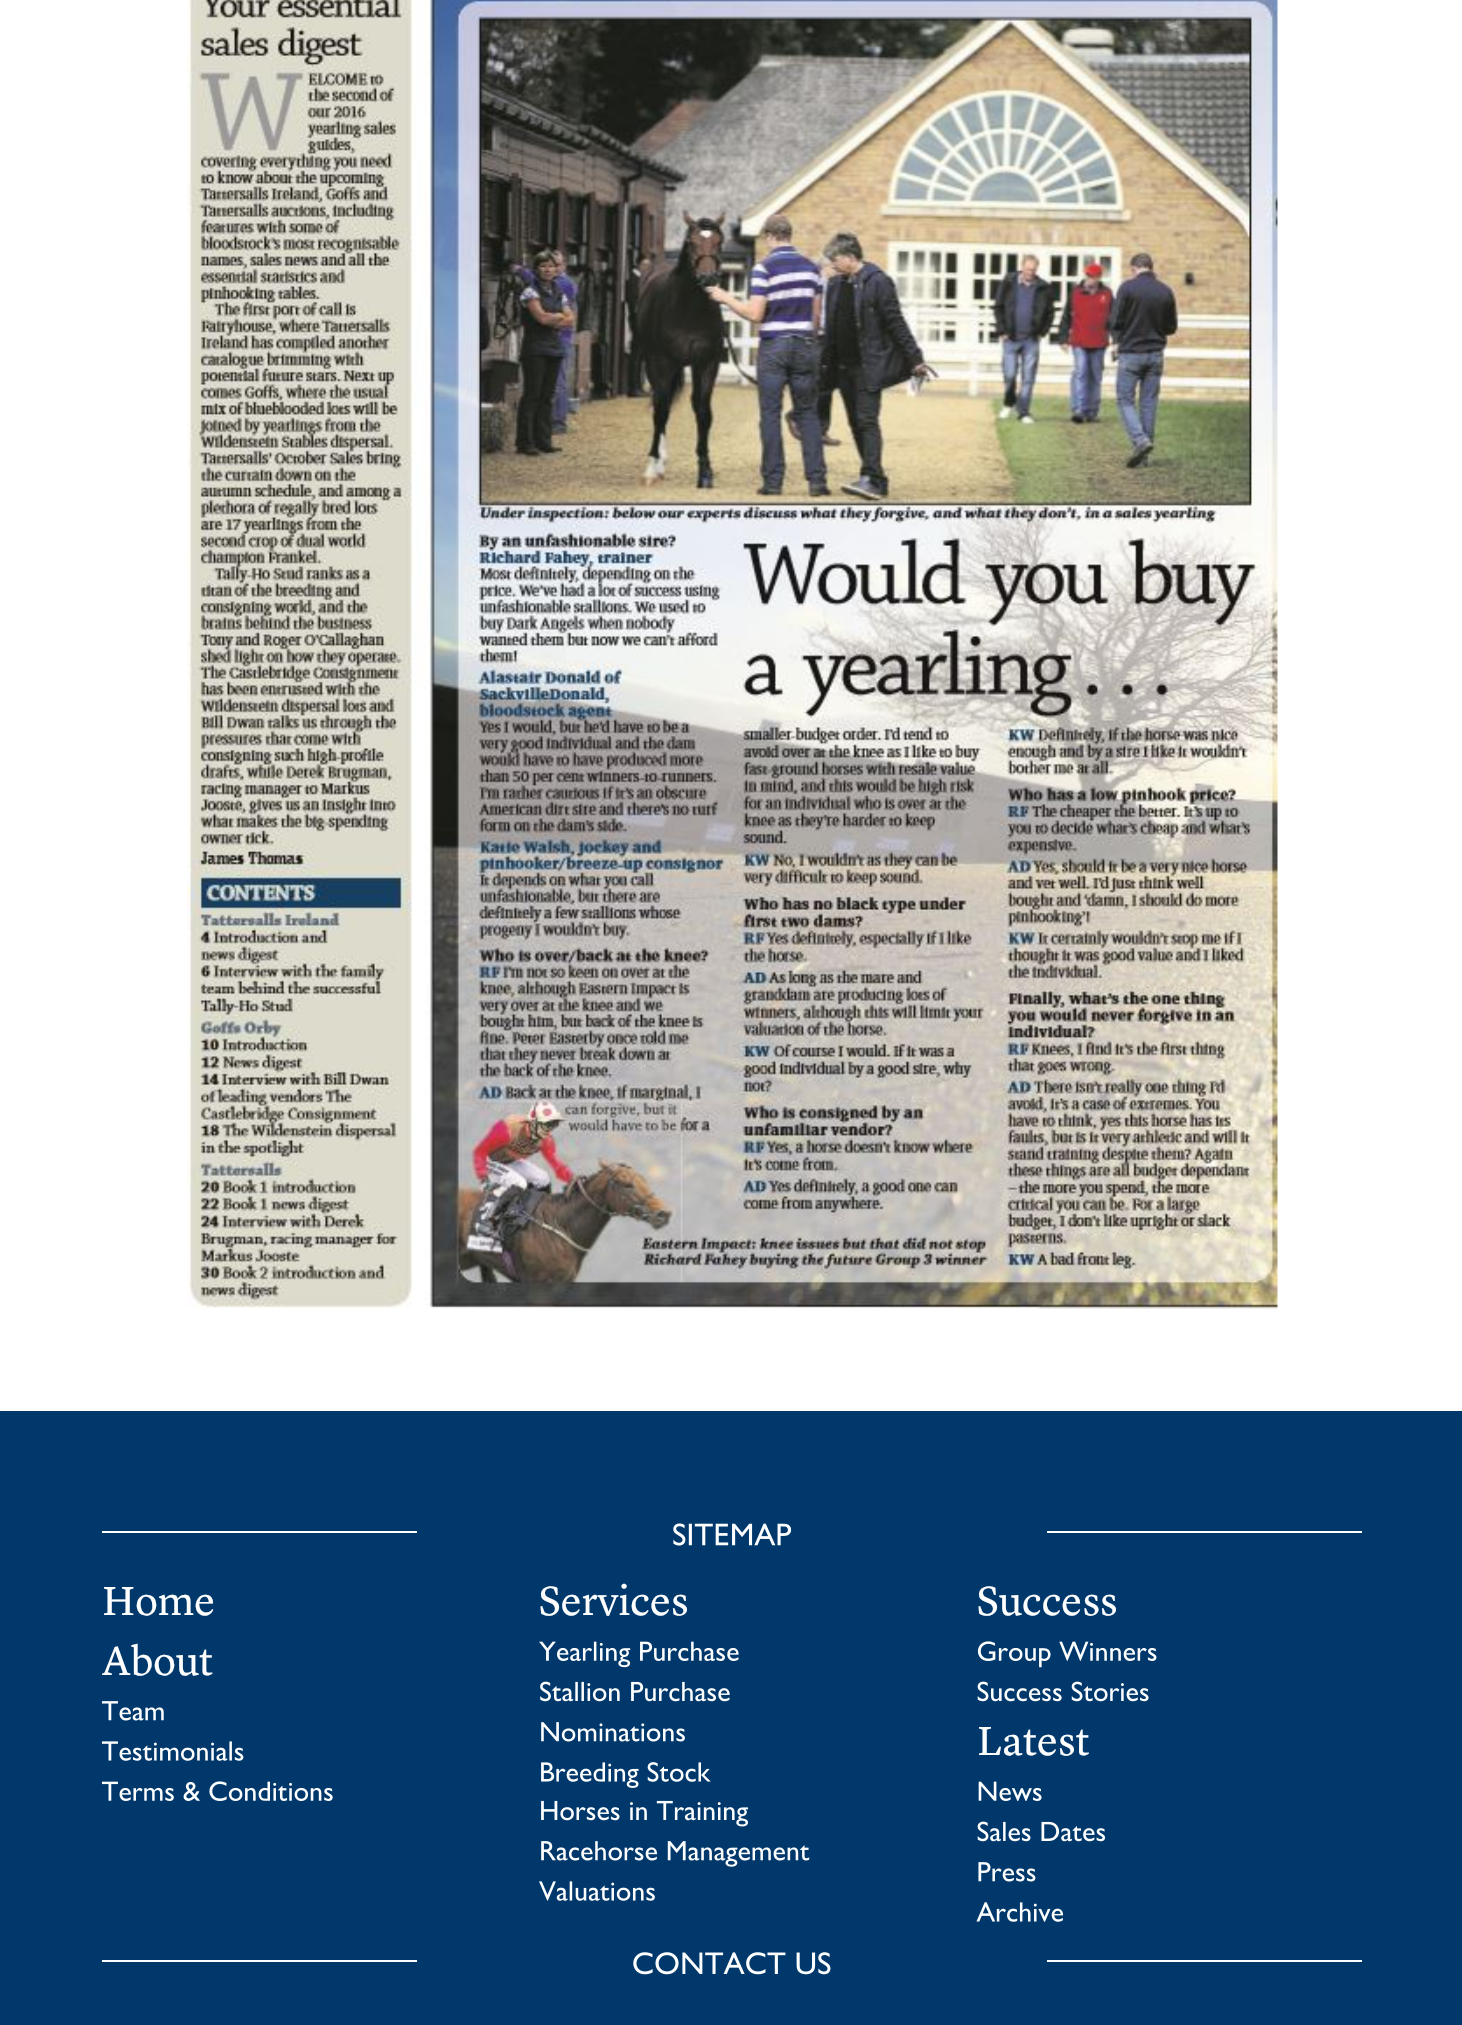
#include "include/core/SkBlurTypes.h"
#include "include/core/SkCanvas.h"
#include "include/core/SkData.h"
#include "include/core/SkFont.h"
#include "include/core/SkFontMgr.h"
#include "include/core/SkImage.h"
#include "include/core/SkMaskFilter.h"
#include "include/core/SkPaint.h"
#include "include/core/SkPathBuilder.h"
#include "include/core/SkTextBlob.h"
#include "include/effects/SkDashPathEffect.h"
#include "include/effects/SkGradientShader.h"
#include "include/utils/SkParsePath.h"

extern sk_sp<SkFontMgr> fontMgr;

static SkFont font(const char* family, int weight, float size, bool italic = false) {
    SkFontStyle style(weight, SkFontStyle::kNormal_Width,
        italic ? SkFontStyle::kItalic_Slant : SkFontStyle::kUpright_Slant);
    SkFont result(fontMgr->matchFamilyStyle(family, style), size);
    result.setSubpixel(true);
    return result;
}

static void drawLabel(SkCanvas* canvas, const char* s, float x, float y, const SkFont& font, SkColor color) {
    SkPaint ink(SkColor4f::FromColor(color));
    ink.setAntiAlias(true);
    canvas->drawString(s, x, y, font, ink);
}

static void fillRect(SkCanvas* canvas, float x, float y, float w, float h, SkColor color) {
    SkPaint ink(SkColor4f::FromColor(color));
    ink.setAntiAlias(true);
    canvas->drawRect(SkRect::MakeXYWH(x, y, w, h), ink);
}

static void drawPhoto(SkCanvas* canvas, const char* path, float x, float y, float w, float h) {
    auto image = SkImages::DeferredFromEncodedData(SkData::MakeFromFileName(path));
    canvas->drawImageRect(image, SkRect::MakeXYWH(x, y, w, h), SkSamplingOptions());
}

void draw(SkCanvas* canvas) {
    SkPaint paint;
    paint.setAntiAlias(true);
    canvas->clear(0xFFFFFFFF);
    drawPhoto(canvas, "assets/img1.png", 187, 0, 1091, 1309);
    fillRect(canvas, 0, 1411, 1462, 614, 0xFF00386C);
    fillRect(canvas, 102, 1531, 315, 2, 0xFFFFFFFF);
    drawPhoto(canvas, "assets/img2.png", 673, 1523, 119, 23);
    fillRect(canvas, 1047, 1531, 315, 2, 0xFFFFFFFF);
    SkFont font1 = font("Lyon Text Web", 400, 42);
    drawLabel(canvas, "Home", 102, 1615, font1, 0xFFFFFFFF);
    drawLabel(canvas, "About", 102, 1675, font1, 0xFFFFFFFF);
    drawPhoto(canvas, "assets/img3.png", 101, 1701, 63, 20);
    drawPhoto(canvas, "assets/img4.png", 101, 1741, 143, 20);
    drawPhoto(canvas, "assets/img5.png", 101, 1781, 232, 20);
    drawLabel(canvas, "Services", 539, 1615, font1, 0xFFFFFFFF);
    drawPhoto(canvas, "assets/img6.png", 539, 1641, 200, 27);
    drawPhoto(canvas, "assets/img7.png", 540, 1681, 190, 21);
    drawPhoto(canvas, "assets/img8.png", 541, 1722, 144, 20);
    drawPhoto(canvas, "assets/img9.png", 541, 1762, 170, 26);
    drawPhoto(canvas, "assets/img10.png", 541, 1800, 208, 27);
    drawPhoto(canvas, "assets/img11.png", 541, 1841, 269, 26);
    drawPhoto(canvas, "assets/img12.png", 539, 1881, 116, 20);
    drawLabel(canvas, "Success", 977, 1615, font1, 0xFFFFFFFF);
    drawPhoto(canvas, "assets/img13.png", 977, 1641, 180, 27);
    drawPhoto(canvas, "assets/img14.png", 977, 1681, 172, 21);
    drawLabel(canvas, "Latest", 977, 1755, font1, 0xFFFFFFFF);
    drawPhoto(canvas, "assets/img15.png", 978, 1781, 64, 20);
    drawPhoto(canvas, "assets/img16.png", 977, 1821, 129, 21);
    drawPhoto(canvas, "assets/img17.png", 978, 1862, 58, 20);
    drawPhoto(canvas, "assets/img18.png", 976, 1902, 88, 20);
    fillRect(canvas, 102, 1960, 315, 2, 0xFFFFFFFF);
    drawPhoto(canvas, "assets/img19.png", 633, 1952, 198, 23);
    fillRect(canvas, 1047, 1960, 315, 2, 0xFFFFFFFF);
}
